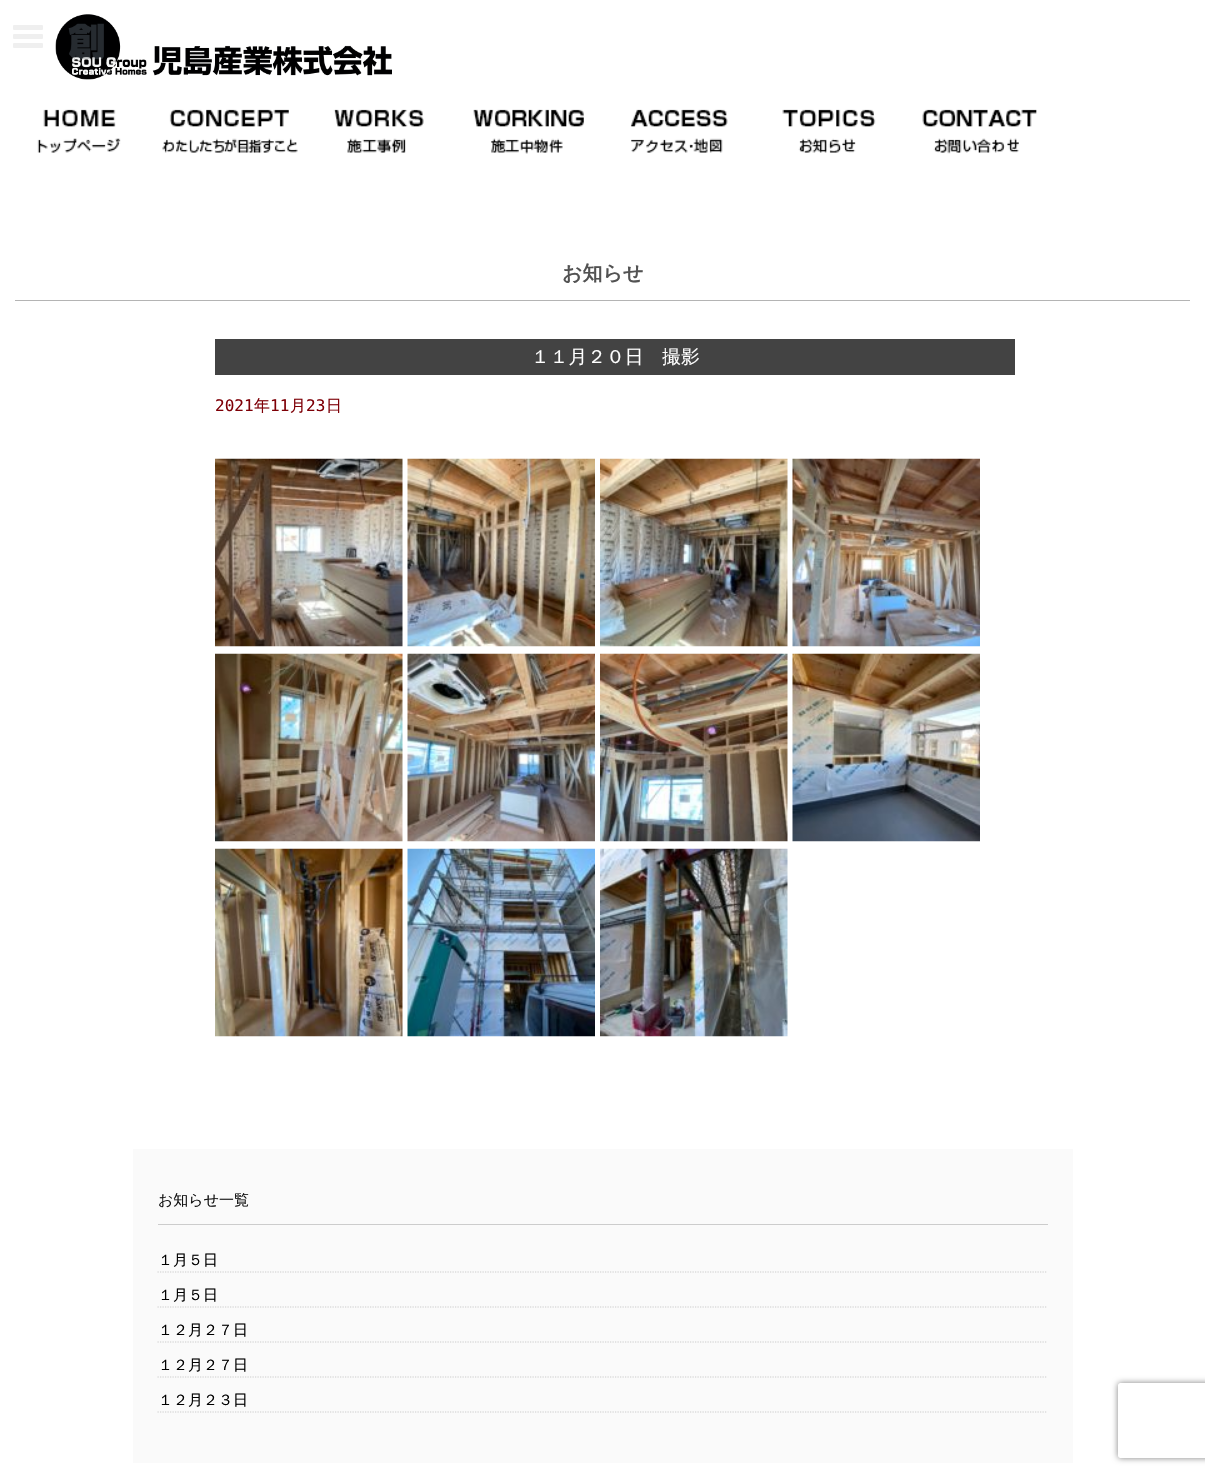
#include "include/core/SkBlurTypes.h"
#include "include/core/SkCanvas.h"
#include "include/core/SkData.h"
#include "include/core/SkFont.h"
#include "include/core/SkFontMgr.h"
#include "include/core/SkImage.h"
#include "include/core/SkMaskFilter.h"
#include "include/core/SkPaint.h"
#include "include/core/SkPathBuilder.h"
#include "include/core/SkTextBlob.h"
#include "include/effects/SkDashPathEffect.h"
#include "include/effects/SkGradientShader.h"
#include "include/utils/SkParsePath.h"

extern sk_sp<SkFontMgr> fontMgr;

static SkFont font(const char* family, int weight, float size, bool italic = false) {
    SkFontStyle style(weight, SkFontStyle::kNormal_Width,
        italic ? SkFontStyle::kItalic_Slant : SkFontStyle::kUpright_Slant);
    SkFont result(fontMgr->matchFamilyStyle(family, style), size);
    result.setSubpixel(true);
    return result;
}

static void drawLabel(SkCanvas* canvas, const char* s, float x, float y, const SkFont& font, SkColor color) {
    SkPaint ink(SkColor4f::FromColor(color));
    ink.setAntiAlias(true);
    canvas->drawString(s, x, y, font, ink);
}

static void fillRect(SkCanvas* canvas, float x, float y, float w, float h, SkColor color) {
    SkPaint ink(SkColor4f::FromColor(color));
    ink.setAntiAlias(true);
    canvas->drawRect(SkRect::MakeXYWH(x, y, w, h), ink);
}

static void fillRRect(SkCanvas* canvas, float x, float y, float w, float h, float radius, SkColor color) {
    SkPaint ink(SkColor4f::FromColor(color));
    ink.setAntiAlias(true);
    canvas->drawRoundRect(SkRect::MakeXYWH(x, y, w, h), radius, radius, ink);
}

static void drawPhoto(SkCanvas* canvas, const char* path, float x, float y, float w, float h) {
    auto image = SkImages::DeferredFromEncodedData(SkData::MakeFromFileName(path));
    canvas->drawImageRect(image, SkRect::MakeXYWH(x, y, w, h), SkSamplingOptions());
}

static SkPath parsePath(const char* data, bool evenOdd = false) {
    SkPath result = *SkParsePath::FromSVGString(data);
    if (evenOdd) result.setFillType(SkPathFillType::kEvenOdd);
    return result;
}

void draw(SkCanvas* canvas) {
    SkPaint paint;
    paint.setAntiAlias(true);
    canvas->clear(0xFFFFFFFF);
    fillRRect(canvas, 13, 25, 30, 5, 1, 0xFFEFEFEF);
    fillRRect(canvas, 13, 34, 30, 5, 1, 0xFFEFEFEF);
    fillRRect(canvas, 13, 43, 30, 5, 1, 0xFFEFEFEF);
    drawPhoto(canvas, "assets/img1.png", 55, 14, 337, 66);
    drawPhoto(canvas, "assets/img2.png", 37, 109, 84, 44);
    drawPhoto(canvas, "assets/img3.png", 162, 109, 136, 44);
    drawPhoto(canvas, "assets/img4.png", 333, 109, 91, 44);
    drawPhoto(canvas, "assets/img5.png", 473, 109, 111, 45);
    drawPhoto(canvas, "assets/img6.png", 630, 109, 98, 44);
    drawPhoto(canvas, "assets/img7.png", 782, 109, 94, 44);
    drawPhoto(canvas, "assets/img8.png", 922, 109, 115, 45);
    fillRect(canvas, 15, 300, 1175, 1, 0xFFB4B4B4);
    SkFont font1 = font("WenQuanYi Zen Hei", 700, 20);
    drawLabel(canvas, "お知らせ", 562, 280, font1, 0xFF525252);
    fillRect(canvas, 215, 339, 800, 36, 0xFF434343);
    SkFont font2 = font("WenQuanYi Zen Hei", 500, 18.75f);
    drawLabel(canvas, "１１月２０日　撮影", 531, 363, font2, 0xFFFFFFFF);
    SkFont font3 = font("DejaVu Sans Mono", 400, 16);
    drawLabel(canvas, "2021", 215, 411, font3, 0xFF7E0007);
    SkFont font4 = font("WenQuanYi Zen Hei", 500, 16);
    drawLabel(canvas, "年", 254, 411, font4, 0xFF7E0007);
    drawLabel(canvas, "11", 270, 411, font3, 0xFF7E0007);
    drawLabel(canvas, "月", 290, 411, font4, 0xFF7E0007);
    drawLabel(canvas, "23", 306, 411, font3, 0xFF7E0007);
    drawLabel(canvas, "日", 326, 411, font4, 0xFF7E0007);
    drawPhoto(canvas, "assets/img9.png", 215, 458, 188, 189);
    drawPhoto(canvas, "assets/img10.png", 407, 458, 188, 189);
    drawPhoto(canvas, "assets/img11.png", 600, 458, 188, 189);
    drawPhoto(canvas, "assets/img12.png", 792, 458, 188, 189);
    drawPhoto(canvas, "assets/img13.png", 215, 653, 188, 189);
    drawPhoto(canvas, "assets/img14.png", 407, 653, 188, 189);
    drawPhoto(canvas, "assets/img15.png", 600, 653, 188, 189);
    drawPhoto(canvas, "assets/img16.png", 792, 653, 188, 189);
    drawPhoto(canvas, "assets/img17.png", 215, 848, 188, 189);
    drawPhoto(canvas, "assets/img18.png", 407, 848, 188, 189);
    drawPhoto(canvas, "assets/img19.png", 600, 848, 188, 189);
    fillRect(canvas, 133, 1149, 940, 314, 0xFFFAFAFA);
    fillRect(canvas, 158, 1224, 890, 1, 0xFFCCCCCC);
    SkFont font5 = font("WenQuanYi Zen Hei", 500, 15);
    drawLabel(canvas, "お知らせ一覧", 158, 1205, font5, 0xFF111111);
    paint.setStroke(true);
    paint.setStrokeWidth(1.2f);
    paint.setColor(0xFFCCCCCC);
    paint.setPathEffect(SkDashPathEffect::Make({{1.25f, 1.25f}}, 0));
    canvas->drawPath(parsePath("M157.5 1272H1047.5"), paint);
    paint.setPathEffect(nullptr);
    drawLabel(canvas, "１月５日", 158, 1265, font5, 0xFF000000);
    paint.setPathEffect(SkDashPathEffect::Make({{1.25f, 1.25f}}, 0));
    canvas->drawPath(parsePath("M157.5 1307H1047.5"), paint);
    paint.setPathEffect(nullptr);
    drawLabel(canvas, "１月５日", 158, 1300, font5, 0xFF000000);
    paint.setPathEffect(SkDashPathEffect::Make({{1.25f, 1.25f}}, 0));
    canvas->drawPath(parsePath("M157.5 1342H1047.5"), paint);
    paint.setPathEffect(nullptr);
    drawLabel(canvas, "１２月２７日", 158, 1335, font5, 0xFF000000);
    paint.setPathEffect(SkDashPathEffect::Make({{1.25f, 1.25f}}, 0));
    canvas->drawPath(parsePath("M157.5 1377H1047.5"), paint);
    paint.setPathEffect(nullptr);
    drawLabel(canvas, "１２月２７日", 158, 1370, font5, 0xFF000000);
    paint.setPathEffect(SkDashPathEffect::Make({{1.25f, 1.25f}}, 0));
    canvas->drawPath(parsePath("M157.5 1412H1047.5"), paint);
    paint.setPathEffect(nullptr);
    drawLabel(canvas, "１２月２３日", 158, 1405, font5, 0xFF000000);
    canvas->save();
    canvas->clipPath(parsePath("M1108 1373H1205V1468H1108ZM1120.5 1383H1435.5C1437 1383 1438 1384 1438 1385.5V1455.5C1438 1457 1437 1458 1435.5 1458H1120.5C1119 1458 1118 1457 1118 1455.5V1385.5C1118 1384 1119 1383 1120.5 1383Z", true), true);
    paint.setStroke(false);
    paint.setColor(0xFF808080);
    paint.setMaskFilter(SkMaskFilter::MakeBlur(kNormal_SkBlurStyle, 3));
    canvas->drawRoundRect(SkRect::MakeXYWH(1118, 1383, 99, 75), 2.5f, 2.5f, paint);
    paint.setMaskFilter(nullptr);
    canvas->restore();
}
